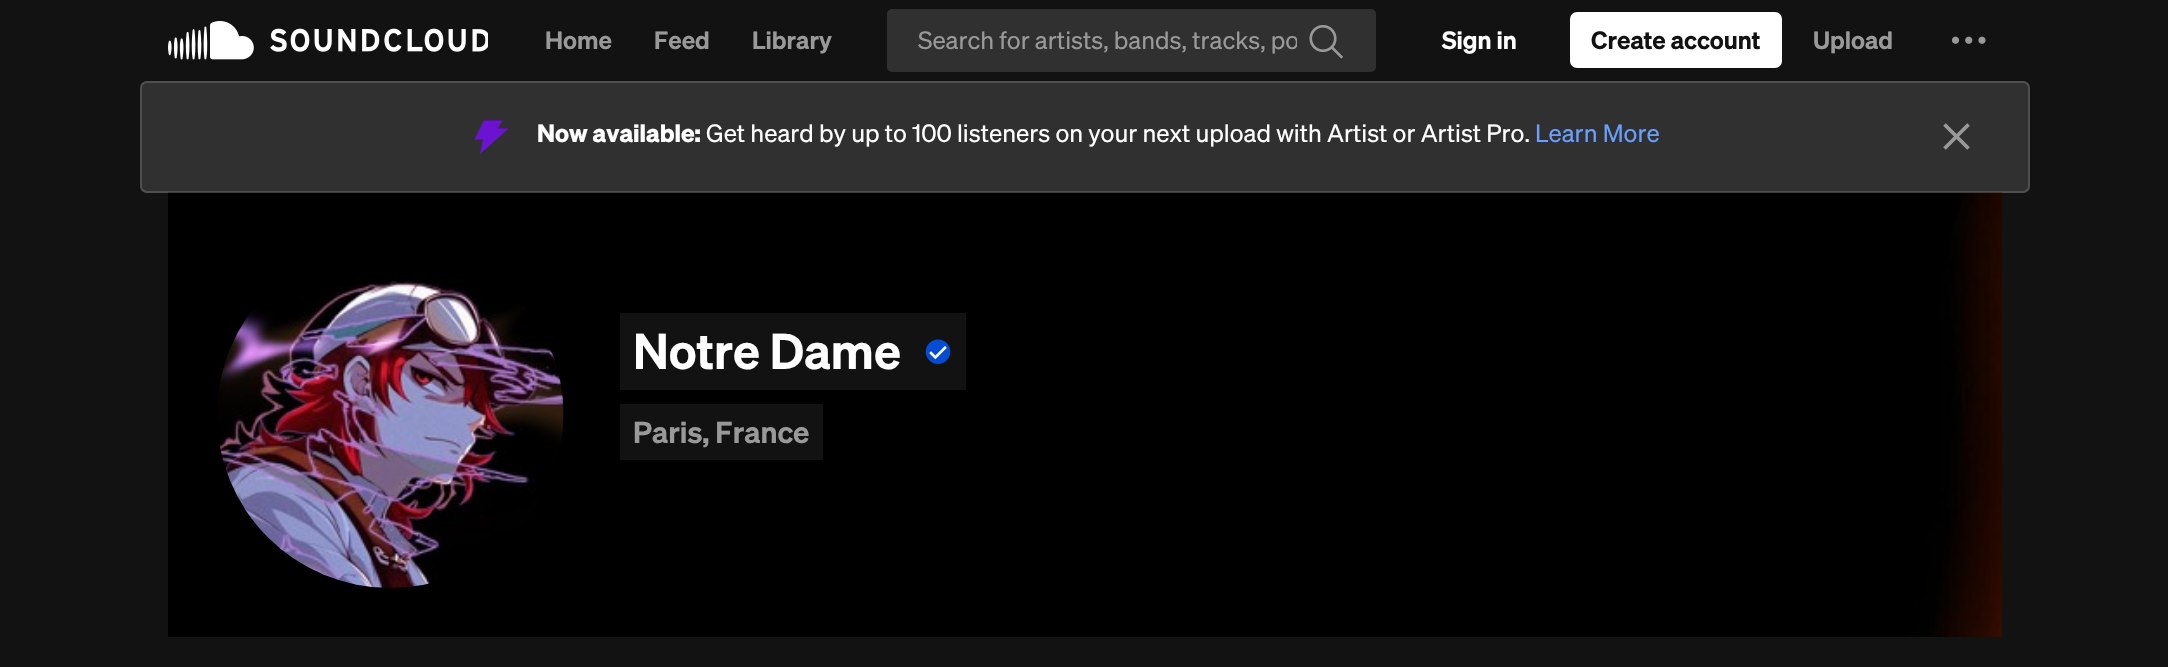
#include "include/core/SkBlurTypes.h"
#include "include/core/SkCanvas.h"
#include "include/core/SkData.h"
#include "include/core/SkFont.h"
#include "include/core/SkFontMgr.h"
#include "include/core/SkImage.h"
#include "include/core/SkMaskFilter.h"
#include "include/core/SkPaint.h"
#include "include/core/SkPathBuilder.h"
#include "include/core/SkTextBlob.h"
#include "include/effects/SkDashPathEffect.h"
#include "include/effects/SkGradientShader.h"
#include "include/utils/SkParsePath.h"

extern sk_sp<SkFontMgr> fontMgr;

static SkFont font(const char* family, int weight, float size, bool italic = false) {
    SkFontStyle style(weight, SkFontStyle::kNormal_Width,
        italic ? SkFontStyle::kItalic_Slant : SkFontStyle::kUpright_Slant);
    SkFont result(fontMgr->matchFamilyStyle(family, style), size);
    result.setSubpixel(true);
    return result;
}

static void drawLabel(SkCanvas* canvas, const char* s, float x, float y, const SkFont& font, SkColor color) {
    SkPaint ink(SkColor4f::FromColor(color));
    ink.setAntiAlias(true);
    canvas->drawString(s, x, y, font, ink);
}

static void fillRect(SkCanvas* canvas, float x, float y, float w, float h, SkColor color) {
    SkPaint ink(SkColor4f::FromColor(color));
    ink.setAntiAlias(true);
    canvas->drawRect(SkRect::MakeXYWH(x, y, w, h), ink);
}

static void fillRRect(SkCanvas* canvas, float x, float y, float w, float h, float radius, SkColor color) {
    SkPaint ink(SkColor4f::FromColor(color));
    ink.setAntiAlias(true);
    canvas->drawRoundRect(SkRect::MakeXYWH(x, y, w, h), radius, radius, ink);
}

static void drawPhoto(SkCanvas* canvas, const char* path, float x, float y, float w, float h) {
    auto image = SkImages::DeferredFromEncodedData(SkData::MakeFromFileName(path));
    canvas->drawImageRect(image, SkRect::MakeXYWH(x, y, w, h), SkSamplingOptions());
}

static SkPath parsePath(const char* data, bool evenOdd = false) {
    SkPath result = *SkParsePath::FromSVGString(data);
    if (evenOdd) result.setFillType(SkPathFillType::kEvenOdd);
    return result;
}

void draw(SkCanvas* canvas) {
    SkPaint paint;
    paint.setAntiAlias(true);
    canvas->clear(0xFF121212);
    drawPhoto(canvas, "assets/img1.png", 168, 21, 320, 39);
    SkFont font1 = font("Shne", 600, 24.5f);
    drawLabel(canvas, "Home", 545, 49, font1, 0xFF999999);
    drawLabel(canvas, "Feed", 654, 49, font1, 0xFF999999);
    drawLabel(canvas, "Library", 752, 49, font1, 0xFF999999);
    fillRRect(canvas, 887, 9, 489, 63, 5, 0xFF303030);
    canvas->save();
    canvas->clipRect(SkRect::MakeXYWH(917, 21, 380, 39));
    SkFont font2 = font("Shne", 400, 24.5f);
    drawLabel(canvas, "Search for artists, bands, tracks, po", 918, 49, font2, 0xFF999999);
    canvas->restore();
    drawPhoto(canvas, "assets/img2.png", 1309, 25, 34, 34);
    drawLabel(canvas, "Sign in", 1442, 49, font1, 0xFFFFFFFF);
    fillRRect(canvas, 1570, 12, 212, 56, 7, 0xFFFFFFFF);
    drawLabel(canvas, "Create account", 1591, 49, font1, 0xFF121212);
    drawLabel(canvas, "Upload", 1813, 49, font1, 0xFF999999);
    drawPhoto(canvas, "assets/img3.png", 1951, 36, 35, 8);
    fillRRect(canvas, 140, 81, 1890, 112, 7, 0xFF303030);
    paint.setStroke(true);
    paint.setStrokeWidth(2);
    paint.setColor(0x26FFFFFF);
    canvas->drawRoundRect(SkRect::MakeXYWH(141, 82, 1888, 110), 6, 6, paint);
    paint.setStroke(false);
    paint.setColor(0xFF6C12D2);
    canvas->drawPath(parsePath("M484 120.5L474.5 139.5H483L480 154L508.5 128.5H497.5L502.5 120.5Z"), paint);
    SkFont font3 = font("Shne", 700, 24.5f);
    drawLabel(canvas, "Now available:", 537, 142, font3, 0xFFFFFFFF);
    drawLabel(canvas, "Get heard by up to 100 listeners on your next upload with Artist or Artist Pro.", 706, 142, font2, 0xFFFFFFFF);
    drawLabel(canvas, "Learn More", 1535, 142, font2, 0xFF699FFF);
    drawPhoto(canvas, "assets/img4.png", 1943, 123, 27, 27);
    drawPhoto(canvas, "assets/img5.png", 168, 192, 1834, 445);
    drawPhoto(canvas, "assets/img6.png", 217, 273, 347, 315);
    fillRect(canvas, 620, 313, 346, 77, 0xFF121212);
    SkFont font4 = font("Shne", 600, 49);
    drawLabel(canvas, "Notre Dame", 633, 369, font4, 0xFFFFFFFF);
    drawPhoto(canvas, "assets/img7.png", 925, 339, 26, 25);
    fillRect(canvas, 620, 404, 203, 56, 0xFF121212);
    SkFont font5 = font("Shne", 600, 29.75f);
    drawLabel(canvas, "Paris, France", 633, 443, font5, 0xFF999999);
}
